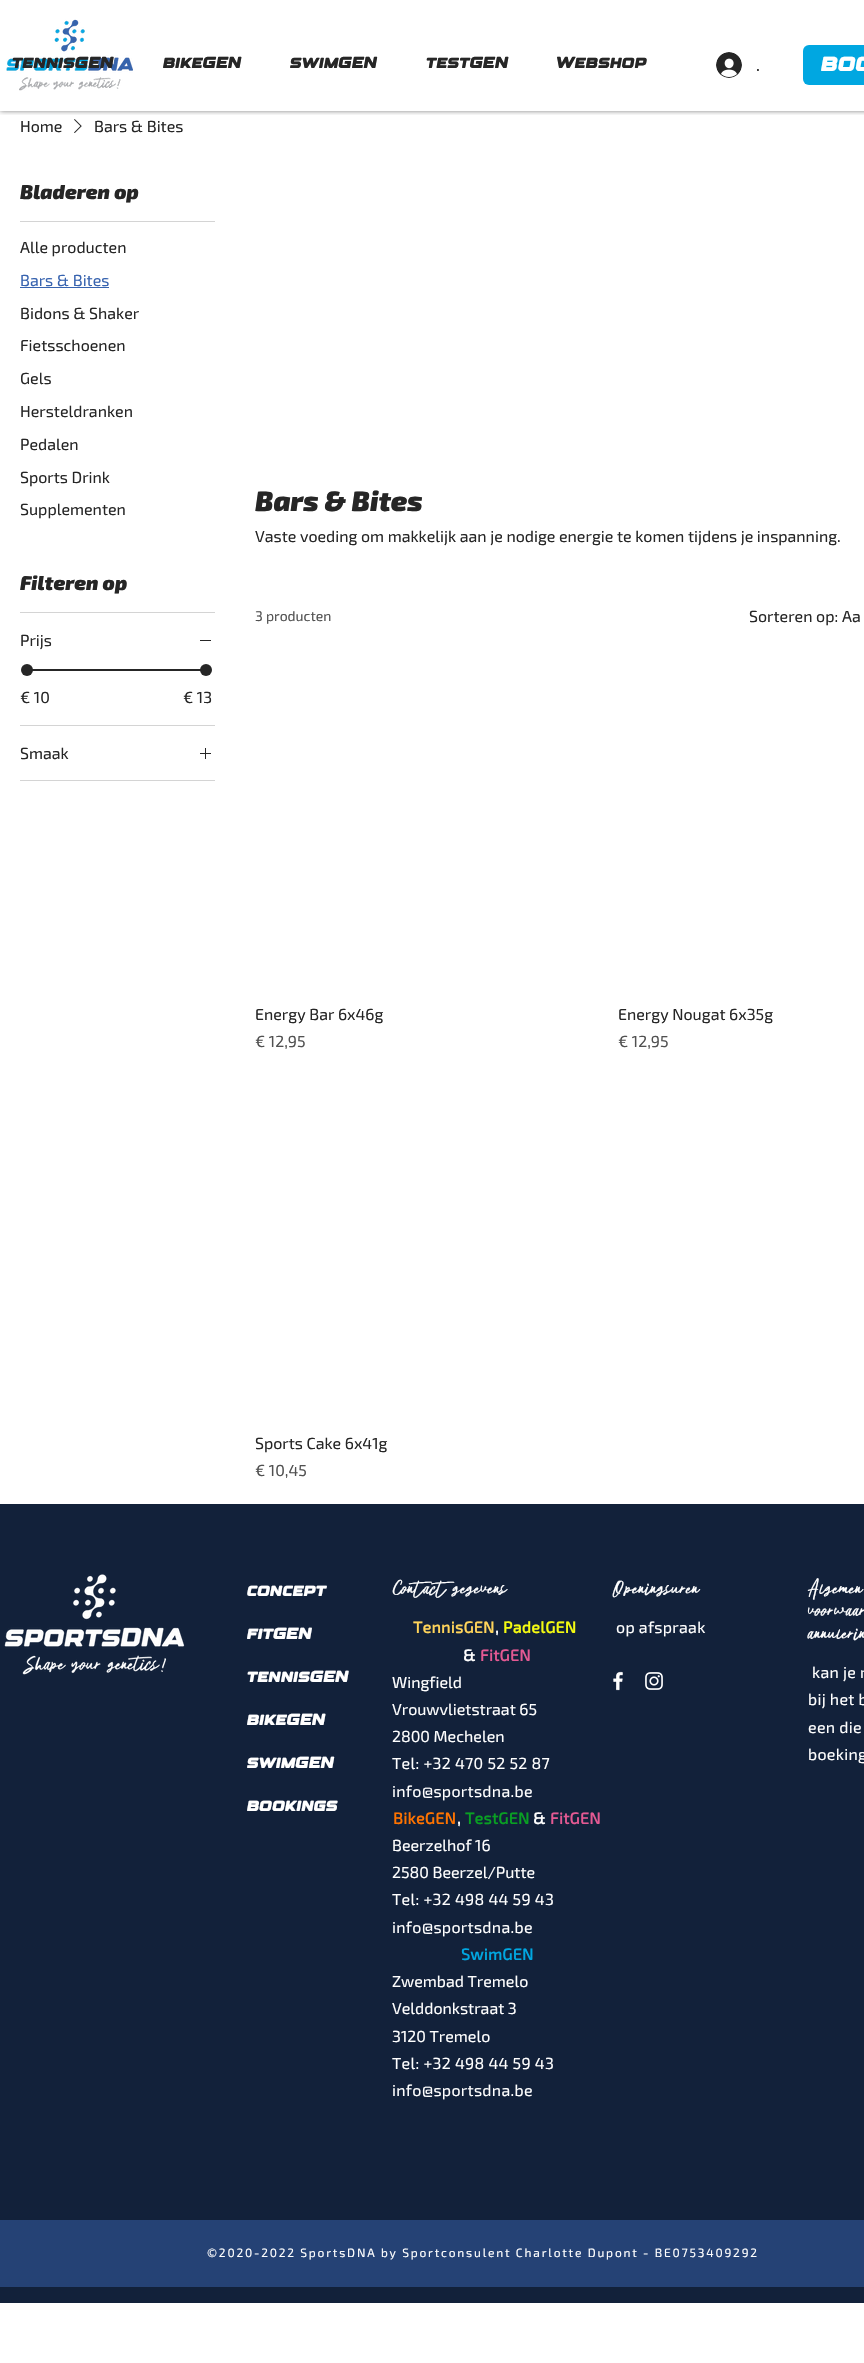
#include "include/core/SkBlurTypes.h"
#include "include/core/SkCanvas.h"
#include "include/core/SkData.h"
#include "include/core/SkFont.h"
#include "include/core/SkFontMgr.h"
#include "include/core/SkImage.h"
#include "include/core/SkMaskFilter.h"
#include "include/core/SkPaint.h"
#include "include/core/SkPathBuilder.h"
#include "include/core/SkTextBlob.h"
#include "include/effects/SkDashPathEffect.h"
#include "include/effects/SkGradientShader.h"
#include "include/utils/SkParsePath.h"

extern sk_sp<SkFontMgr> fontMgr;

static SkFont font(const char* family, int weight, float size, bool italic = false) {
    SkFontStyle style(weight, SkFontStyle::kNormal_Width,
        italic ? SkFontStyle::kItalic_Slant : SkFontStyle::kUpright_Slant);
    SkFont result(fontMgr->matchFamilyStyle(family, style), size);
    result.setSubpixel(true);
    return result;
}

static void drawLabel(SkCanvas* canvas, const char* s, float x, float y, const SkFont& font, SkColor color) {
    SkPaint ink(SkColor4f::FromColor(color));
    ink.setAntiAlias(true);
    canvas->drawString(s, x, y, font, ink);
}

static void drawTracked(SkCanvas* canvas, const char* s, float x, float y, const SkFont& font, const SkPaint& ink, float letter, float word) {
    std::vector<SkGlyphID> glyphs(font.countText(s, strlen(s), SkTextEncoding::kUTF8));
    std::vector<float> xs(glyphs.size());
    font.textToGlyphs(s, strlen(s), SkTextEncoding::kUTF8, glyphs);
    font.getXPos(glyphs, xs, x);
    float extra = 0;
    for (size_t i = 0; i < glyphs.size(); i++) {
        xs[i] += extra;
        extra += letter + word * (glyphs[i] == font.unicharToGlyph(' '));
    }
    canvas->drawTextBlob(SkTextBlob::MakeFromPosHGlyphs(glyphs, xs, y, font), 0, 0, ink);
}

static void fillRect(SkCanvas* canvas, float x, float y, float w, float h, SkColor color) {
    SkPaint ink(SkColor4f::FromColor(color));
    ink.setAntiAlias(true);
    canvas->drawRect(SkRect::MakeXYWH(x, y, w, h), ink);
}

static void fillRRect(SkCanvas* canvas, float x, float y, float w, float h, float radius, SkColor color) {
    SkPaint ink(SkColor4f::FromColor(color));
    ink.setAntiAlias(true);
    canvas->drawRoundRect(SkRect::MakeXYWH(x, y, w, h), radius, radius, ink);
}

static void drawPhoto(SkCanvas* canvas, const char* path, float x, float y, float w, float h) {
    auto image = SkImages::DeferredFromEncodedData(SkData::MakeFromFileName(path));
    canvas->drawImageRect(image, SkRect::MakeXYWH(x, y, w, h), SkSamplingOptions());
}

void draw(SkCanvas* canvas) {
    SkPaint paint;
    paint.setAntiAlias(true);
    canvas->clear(0xFFFFFFFF);
    canvas->save();
    canvas->clipRect(SkRect::MakeXYWH(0, 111, 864, 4));
    paint.setColor(0x80000000);
    paint.setMaskFilter(SkMaskFilter::MakeBlur(kNormal_SkBlurStyle, 2.5f));
    canvas->drawRect(SkRect::MakeXYWH(0, 0, 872, 111), paint);
    paint.setMaskFilter(nullptr);
    canvas->restore();
    drawPhoto(canvas, "assets/img1.png", 6, 19, 127, 72);
    SkFont font1 = font("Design", 400, 16);
    drawLabel(canvas, "tennisGEN", 12, 68, font1, 0xFF262626);
    drawLabel(canvas, "bikeGEN", 163, 68, font1, 0xFF262626);
    drawLabel(canvas, "swimGEN", 290, 68, font1, 0xFF262626);
    drawLabel(canvas, "testGEN", 426, 68, font1, 0xFF262626);
    drawLabel(canvas, "Webshop", 556, 68, font1, 0xFF262626);
    drawPhoto(canvas, "assets/img2.png", 716, 52, 26, 26);
    SkFont font2 = font("Exo 2", 400, 17);
    drawLabel(canvas, ".", 756, 71, font2, 0xFF262626);
    fillRRect(canvas, 803, 45, 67, 40, 6, 0xFF00A7E1);
    SkFont font3 = font("Design", 400, 22);
    drawLabel(canvas, "boo", 821, 71, font3, 0xFFFFFFFF);
    SkFont font4 = font("Exo 2", 400, 16);
    drawLabel(canvas, "Home", 20, 132, font4, 0xFF262626);
    drawPhoto(canvas, "assets/img3.png", 74, 119, 8, 14);
    drawLabel(canvas, "Bars & Bites", 94, 132, font4, 0xFF262626);
    fillRect(canvas, 20, 221, 195, 1, 0xFFD4D4D4);
    SkFont font5 = font("Exo 2", 900, 20, true);
    drawLabel(canvas, "Bladeren op", 20, 199, font5, 0xFF262626);
    drawLabel(canvas, "Alle producten", 20, 253, font4, 0xFF262626);
    drawLabel(canvas, "Bars & Bites", 20, 286, font4, 0xFF3763AF);
    fillRect(canvas, 20, 287, 89, 1, 0xFF3763AF);
    drawLabel(canvas, "Bidons & Shaker", 20, 319, font4, 0xFF262626);
    drawLabel(canvas, "Fietsschoenen", 20, 351, font4, 0xFF262626);
    drawLabel(canvas, "Gels", 20, 384, font4, 0xFF262626);
    drawLabel(canvas, "Hersteldranken", 20, 417, font4, 0xFF262626);
    drawLabel(canvas, "Pedalen", 20, 450, font4, 0xFF262626);
    drawLabel(canvas, "Sports Drink", 20, 483, font4, 0xFF262626);
    drawLabel(canvas, "Supplementen", 20, 515, font4, 0xFF262626);
    fillRect(canvas, 20, 612, 195, 1, 0xFFD4D4D4);
    drawLabel(canvas, "Filteren op", 20, 590, font5, 0xFF262626);
    fillRect(canvas, 20, 725, 195, 1, 0xFFD4D4D4);
    drawLabel(canvas, "Prijs", 20, 646, font4, 0xFF262626);
    fillRect(canvas, 200, 640, 11, 1, 0xFF262626);
    fillRect(canvas, 26, 669, 179, 2, 0xFF262626);
    paint.setColor(0xFF262626);
    canvas->drawCircle(27, 670, 6, paint);
    canvas->drawCircle(206, 670, 6, paint);
    drawLabel(canvas, "€ 10", 20, 703, font4, 0xFF262626);
    drawLabel(canvas, "€ 13", 183, 703, font4, 0xFF262626);
    fillRect(canvas, 20, 780, 195, 1, 0xFFD4D4D4);
    drawLabel(canvas, "Smaak", 20, 759, font4, 0xFF262626);
    drawPhoto(canvas, "assets/img4.png", 200, 748, 11, 11);
    SkFont font6 = font("Exo 2", 900, 28, true);
    drawLabel(canvas, "Bars & Bites", 255, 511, font6, 0xFF262626);
    drawLabel(canvas, "Vaste voeding om makkelijk aan je nodige energie te komen tijdens je inspanning.", 255, 542, font4, 0xFF262626);
    SkFont font7 = font("Exo 2", 400, 14);
    drawLabel(canvas, "3 producten", 255, 621, font7, 0xFF515151);
    drawLabel(canvas, "Sorteren op:", 749, 622, font4, 0xFF262626);
    drawLabel(canvas, "Aa", 842, 622, font4, 0xFF262626);
    drawLabel(canvas, "Energy Bar 6x46g", 255, 1020, font4, 0xFF262626);
    drawLabel(canvas, "€ 12,95", 255, 1047, font4, 0xFF515151);
    drawLabel(canvas, "Energy Nougat 6x35g", 618, 1020, font4, 0xFF262626);
    drawLabel(canvas, "€ 12,95", 618, 1047, font4, 0xFF515151);
    drawLabel(canvas, "Sports Cake 6x41g", 255, 1449, font4, 0xFF262626);
    drawLabel(canvas, "€ 10,45", 255, 1476, font4, 0xFF515151);
    fillRect(canvas, 0, 1504, 864, 799, 0xFF12213A);
    drawPhoto(canvas, "assets/img5.png", 4, 1574, 181, 101);
    drawLabel(canvas, "concept", 247, 1596, font1, 0xFFFFFFFF);
    drawLabel(canvas, "fitGEN", 247, 1639, font1, 0xFFFFFFFF);
    drawLabel(canvas, "tennisGEN", 247, 1682, font1, 0xFFFFFFFF);
    drawLabel(canvas, "bikeGEN", 247, 1725, font1, 0xFFFFFFFF);
    drawLabel(canvas, "swimGEN", 247, 1768, font1, 0xFFFFFFFF);
    drawLabel(canvas, "bookings", 247, 1811, font1, 0xFFFFFFFF);
    SkFont font8 = font("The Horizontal", 400, 17);
    paint.setColor(0xFFFFFFFF);
    drawTracked(canvas, "Contact gegevens", 392, 1593, font8, paint, 0.3f, 0);
    SkFont font9 = font("Exo 2", 700, 16);
    paint.setColor(0xFFFFD45A);
    drawTracked(canvas, "TennisGEN", 413, 1633, font9, paint, 0.3f, 0);
    paint.setColor(0xFFFFFFFF);
    drawTracked(canvas, ",", 495, 1633, font9, paint, 0.3f, 0);
    paint.setColor(0xFFF5FB11);
    drawTracked(canvas, "PadelGEN", 503, 1633, font9, paint, 0.3f, 0);
    paint.setColor(0xFFFFFFFF);
    drawTracked(canvas, "&", 463, 1661, font9, paint, 0.3f, 0);
    paint.setColor(0xFFE45993);
    drawTracked(canvas, "FitGEN", 480, 1661, font9, paint, 0.3f, 0);
    drawLabel(canvas, "Wingfield", 392, 1688, font4, 0xFFFFFFFF);
    drawLabel(canvas, "Vrouwvlietstraat 65", 392, 1715, font4, 0xFFFFFFFF);
    drawLabel(canvas, "2800 Mechelen", 392, 1742, font4, 0xFFFFFFFF);
    paint.setColor(0xFFFFFFFF);
    drawTracked(canvas, "Tel: +32 470 52 52 87", 392, 1769, font4, paint, 0.3f, 0);
    drawTracked(canvas, "info@sportsdna.be", 392, 1797, font4, paint, 0.3f, 0);
    paint.setColor(0xFFFF7300);
    drawTracked(canvas, "BikeGEN", 393, 1824, font9, paint, 0.3f, 0);
    paint.setColor(0xFFFFFFFF);
    drawTracked(canvas, ",", 457, 1824, font9, paint, 0.3f, 0);
    paint.setColor(0xFF09A023);
    drawTracked(canvas, "TestGEN", 465, 1824, font9, paint, 0.3f, 0);
    paint.setColor(0xFFFFFFFF);
    drawTracked(canvas, "&", 533, 1824, font9, paint, 0.3f, 0);
    paint.setColor(0xFFE45993);
    drawTracked(canvas, "FitGEN", 550, 1824, font9, paint, 0.3f, 0);
    drawLabel(canvas, "Beerzelhof 16", 392, 1851, font4, 0xFFFFFFFF);
    drawLabel(canvas, "2580 Beerzel/Putte", 392, 1878, font4, 0xFFFFFFFF);
    paint.setColor(0xFFFFFFFF);
    drawTracked(canvas, "Tel: +32 498 44 59 43", 392, 1905, font4, paint, 0.3f, 0);
    drawTracked(canvas, "info@sportsdna.be", 392, 1933, font4, paint, 0.3f, 0);
    paint.setColor(0xFF00A7E1);
    drawTracked(canvas, "SwimGEN", 461, 1960, font9, paint, 0.3f, 0);
    drawLabel(canvas, "Zwembad Tremelo", 392, 1987, font4, 0xFFFFFFFF);
    drawLabel(canvas, "Velddonkstraat 3", 392, 2014, font4, 0xFFFFFFFF);
    drawLabel(canvas, "3120 Tremelo", 392, 2042, font4, 0xFFFFFFFF);
    paint.setColor(0xFFFFFFFF);
    drawTracked(canvas, "Tel: +32 498 44 59 43", 392, 2069, font4, paint, 0.3f, 0);
    drawTracked(canvas, "info@sportsdna.be", 392, 2096, font4, paint, 0.3f, 0);
    drawTracked(canvas, "Openingsuren", 612, 1593, font8, paint, 0.3f, 0);
    drawTracked(canvas, "op afspraak", 616, 1633, font4, paint, 0.3f, 0);
    drawPhoto(canvas, "assets/img6.png", 613, 1671, 10, 20);
    drawPhoto(canvas, "assets/img7.png", 645, 1672, 18, 18);
    drawTracked(canvas, "Algemen", 808, 1593, font8, paint, 0.3f, 0);
    drawTracked(canvas, "voorwaar", 808, 1615, font8, paint, 0.3f, 0);
    drawTracked(canvas, "annulerin", 808, 1638, font8, paint, 0.3f, 0);
    drawTracked(canvas, "kan je r", 812, 1678, font4, paint, 0.3f, 0);
    drawTracked(canvas, "bij het b", 808, 1705, font4, paint, 0.3f, 0);
    drawTracked(canvas, "een die", 808, 1733, font4, paint, 0.3f, 0);
    drawTracked(canvas, "boeking", 808, 1760, font4, paint, 0.3f, 0);
    fillRect(canvas, 0, 2220, 864, 67, 0xFF254275);
    SkFont font10 = font("Exo 2", 400, 12);
    drawTracked(canvas, "©2020-2022 SportsDNA by Sportconsulent Charlotte Dupont - BE0753409292", 207, 2257, font10, paint, 1.8f, 0);
}
